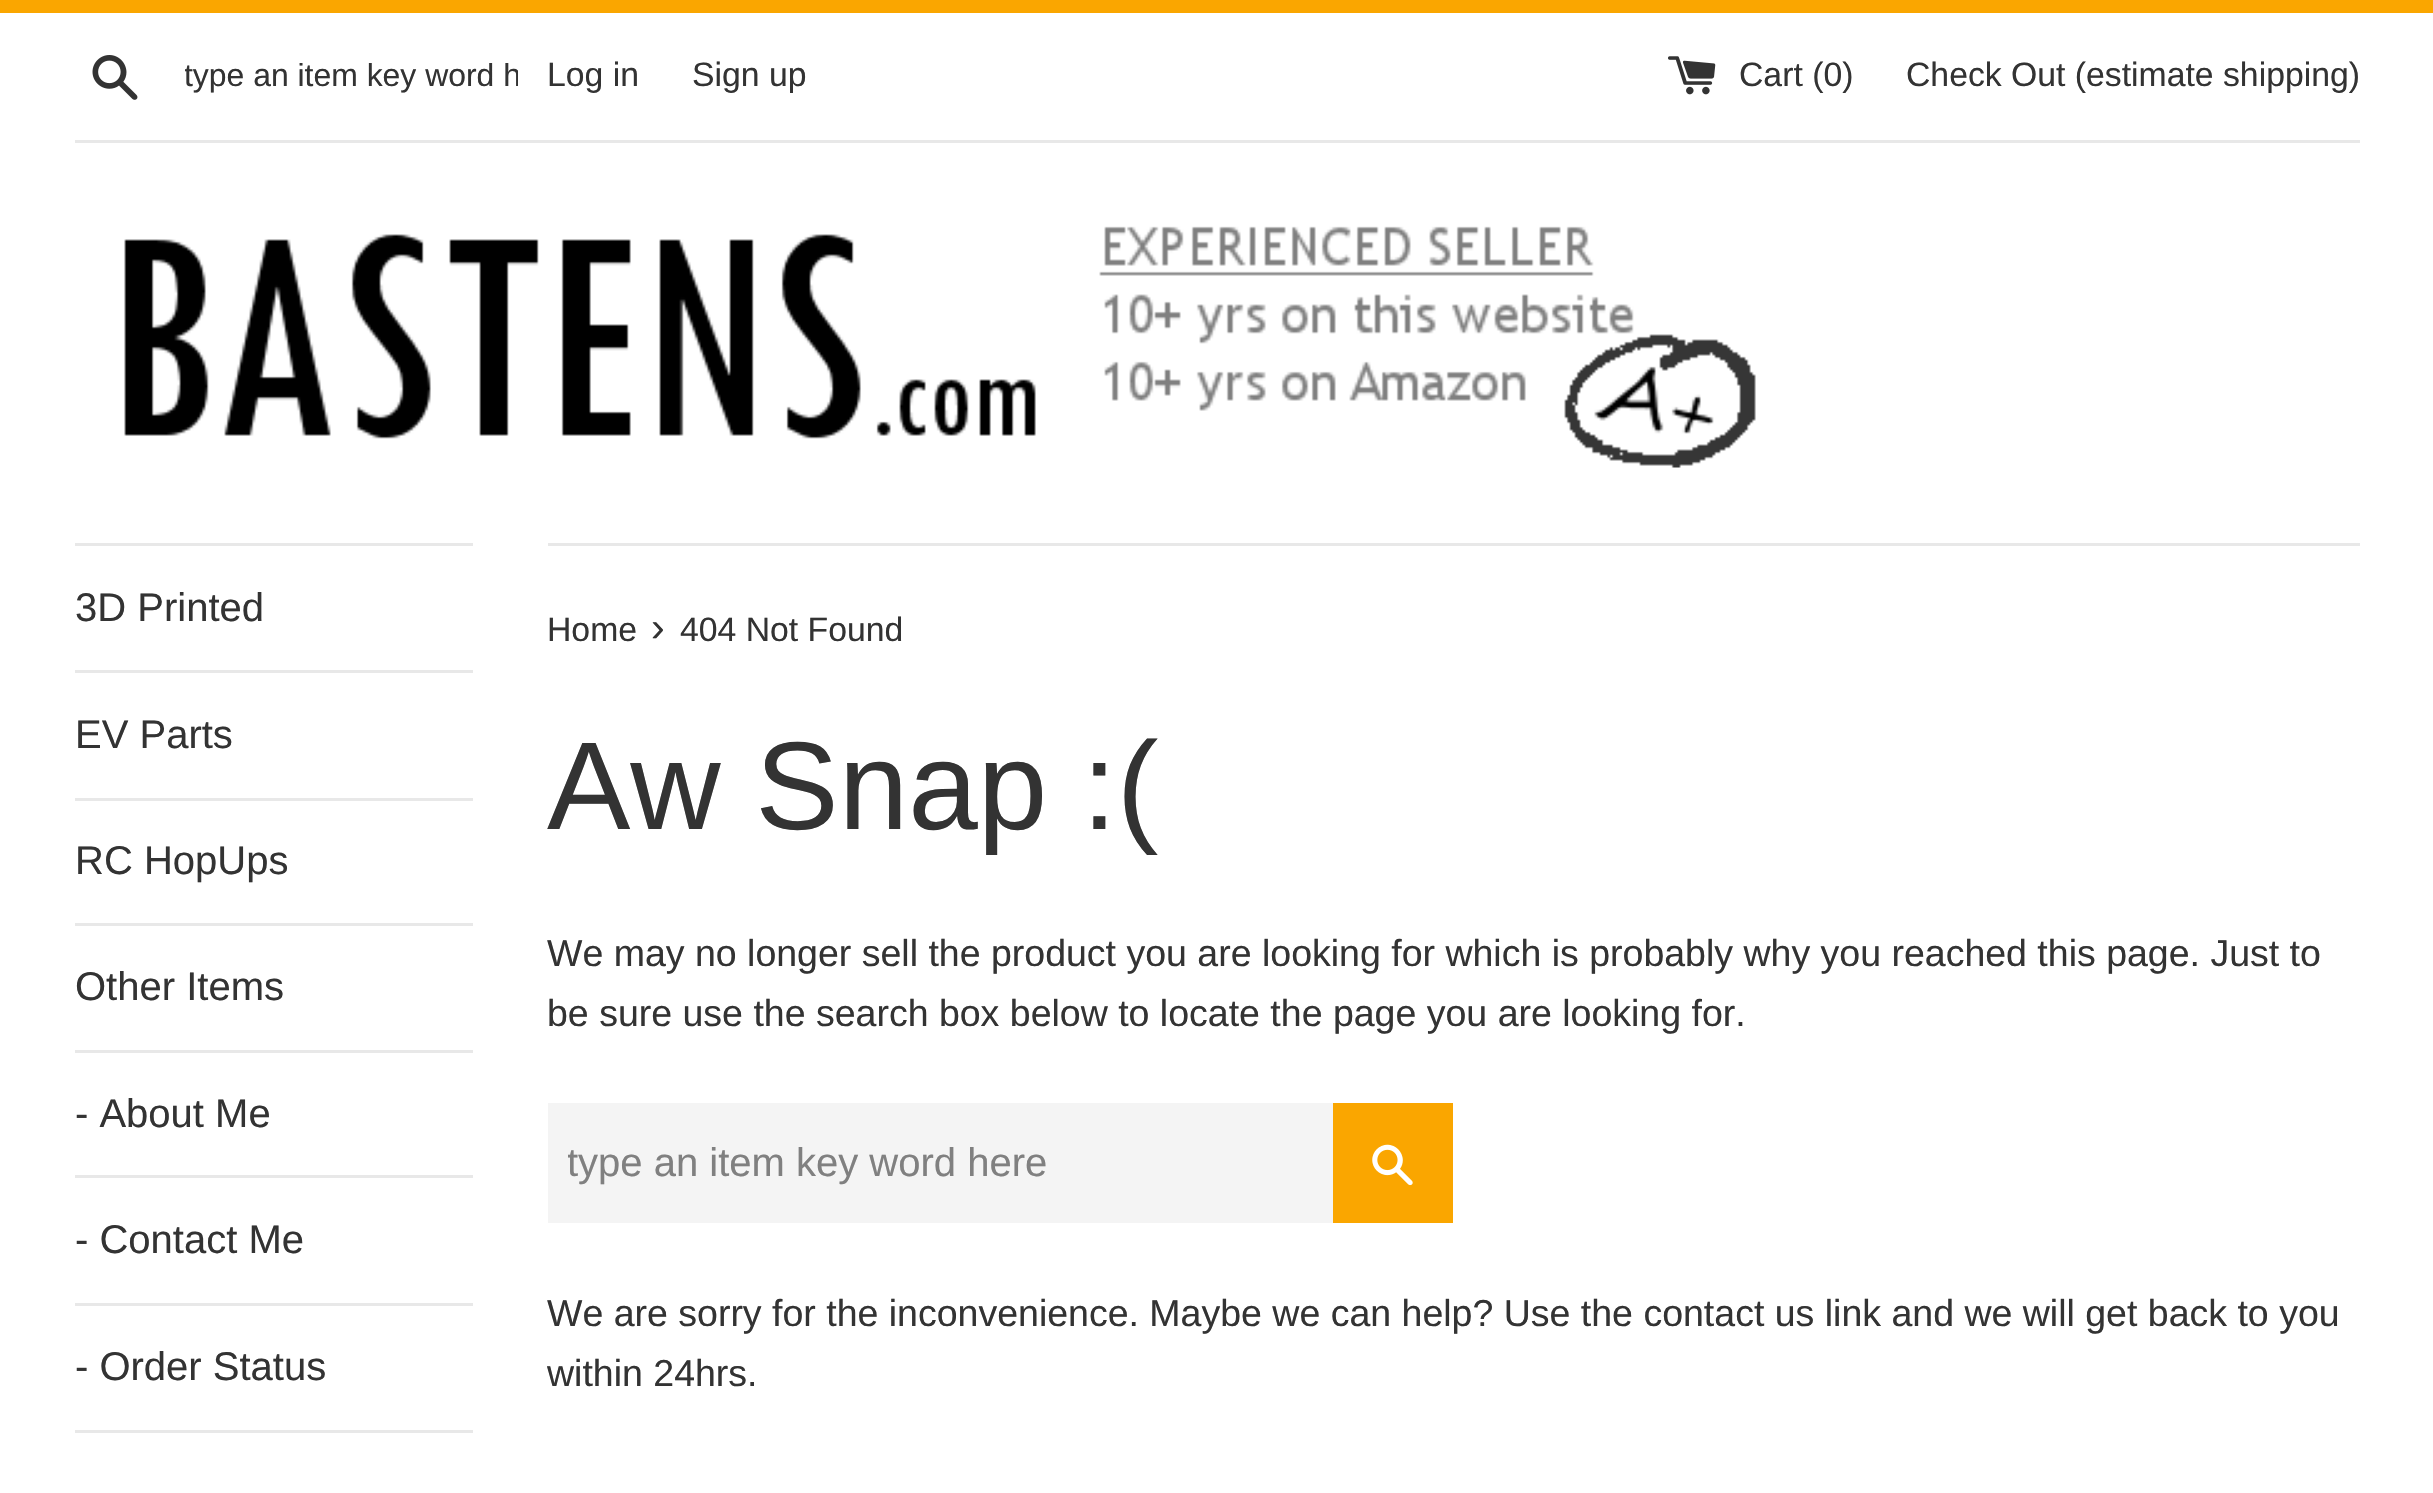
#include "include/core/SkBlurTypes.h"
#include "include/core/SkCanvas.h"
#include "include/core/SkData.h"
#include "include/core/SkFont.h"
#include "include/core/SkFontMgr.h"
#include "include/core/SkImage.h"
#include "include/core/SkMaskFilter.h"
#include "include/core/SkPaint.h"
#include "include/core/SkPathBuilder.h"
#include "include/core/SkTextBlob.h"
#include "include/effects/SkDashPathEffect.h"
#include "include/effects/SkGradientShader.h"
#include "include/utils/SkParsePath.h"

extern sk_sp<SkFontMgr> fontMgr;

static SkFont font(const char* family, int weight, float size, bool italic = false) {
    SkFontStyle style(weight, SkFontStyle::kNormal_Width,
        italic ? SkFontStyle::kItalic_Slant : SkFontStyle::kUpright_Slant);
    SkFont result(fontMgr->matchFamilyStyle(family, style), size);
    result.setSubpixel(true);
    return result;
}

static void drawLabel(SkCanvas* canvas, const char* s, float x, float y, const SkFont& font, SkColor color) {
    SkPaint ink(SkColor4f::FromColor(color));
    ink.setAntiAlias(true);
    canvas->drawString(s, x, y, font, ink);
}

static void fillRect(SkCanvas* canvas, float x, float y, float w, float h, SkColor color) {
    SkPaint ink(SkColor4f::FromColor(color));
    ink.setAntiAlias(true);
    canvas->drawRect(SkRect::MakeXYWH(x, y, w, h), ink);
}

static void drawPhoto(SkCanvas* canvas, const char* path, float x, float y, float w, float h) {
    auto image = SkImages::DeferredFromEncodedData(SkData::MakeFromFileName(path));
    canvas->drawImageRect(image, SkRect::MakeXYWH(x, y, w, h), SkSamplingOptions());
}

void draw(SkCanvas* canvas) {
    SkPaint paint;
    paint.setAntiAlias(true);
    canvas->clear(0xFFFFFFFF);
    fillRect(canvas, 0, 0, 2433, 13, 0xFFFAA600);
    drawPhoto(canvas, "assets/img1.png", 92, 55, 46, 45);
    canvas->save();
    canvas->clipRect(SkRect::MakeXYWH(185, 58, 333, 37));
    SkFont font1 = font("Liberation Sans", 400, 31.9f);
    drawLabel(canvas, "type an item key word h", 184, 86, font1, 0xFF333333);
    canvas->restore();
    SkFont font2 = font("Liberation Sans", 400, 33.75f);
    drawLabel(canvas, "Log in", 547, 86, font2, 0xFF333333);
    drawLabel(canvas, "Sign up", 692, 86, font2, 0xFF333333);
    drawPhoto(canvas, "assets/img2.png", 1668, 56, 48, 39);
    drawLabel(canvas, "Cart (0)", 1739, 86, font2, 0xFF333333);
    drawLabel(canvas, "Check Out (estimate shipping)", 1906, 86, font2, 0xFF333333);
    fillRect(canvas, 75, 140, 2285, 3, 0xFFE8E8E8);
    drawPhoto(canvas, "assets/img3.png", 124, 226, 1632, 242);
    fillRect(canvas, 75, 543, 398, 3, 0xFFE8E8E8);
    fillRect(canvas, 75, 670, 398, 3, 0xFFE8E8E8);
    SkFont font3 = font("Liberation Sans", 400, 40);
    drawLabel(canvas, "3D Printed", 75, 621, font3, 0xFF333333);
    fillRect(canvas, 75, 798, 398, 3, 0xFFE8E8E8);
    drawLabel(canvas, "EV Parts", 75, 748, font3, 0xFF333333);
    fillRect(canvas, 75, 923, 398, 3, 0xFFE8E8E8);
    drawLabel(canvas, "RC HopUps", 75, 874, font3, 0xFF333333);
    fillRect(canvas, 75, 1050, 398, 3, 0xFFE8E8E8);
    drawLabel(canvas, "Other Items", 75, 1000, font3, 0xFF333333);
    fillRect(canvas, 75, 1175, 398, 3, 0xFFE8E8E8);
    drawLabel(canvas, "- About Me", 75, 1127, font3, 0xFF333333);
    fillRect(canvas, 75, 1303, 398, 3, 0xFFE8E8E8);
    drawLabel(canvas, "- Contact Me", 75, 1253, font3, 0xFF333333);
    fillRect(canvas, 75, 1430, 398, 3, 0xFFE8E8E8);
    drawLabel(canvas, "- Order Status", 75, 1380, font3, 0xFF333333);
    fillRect(canvas, 548, 543, 1812, 3, 0xFFE8E8E8);
    drawLabel(canvas, "Home", 547, 641, font2, 0xFF333333);
    SkFont font4 = font("Liberation Sans", 400, 41);
    drawLabel(canvas, "›", 651, 641, font4, 0xFF333333);
    drawLabel(canvas, "404 Not Found", 680, 641, font2, 0xFF333333);
    SkFont font5 = font("Liberation Sans", 400, 125);
    drawLabel(canvas, "Aw Snap :(", 547, 829, font5, 0xFF333333);
    SkFont font6 = font("Liberation Sans", 400, 37.5f);
    drawLabel(canvas, "We may no longer sell the product you are looking for which is probably why you reached this page. Just to", 547, 966, font6, 0xFF333333);
    drawLabel(canvas, "be sure use the search box below to locate the page you are looking for.", 547, 1026, font6, 0xFF333333);
    fillRect(canvas, 548, 1103, 785, 120, 0xFFF4F4F4);
    canvas->save();
    canvas->clipRect(SkRect::MakeXYWH(568, 1140, 775, 45));
    drawLabel(canvas, "type an item key word here", 567, 1176, font3, 0xFF808080);
    canvas->restore();
    fillRect(canvas, 1333, 1103, 120, 120, 0xFFFAA600);
    drawPhoto(canvas, "assets/img4.png", 1372, 1144, 41, 42);
    drawLabel(canvas, "We are sorry for the inconvenience. Maybe we can help? Use the contact us link and we will get back to you", 547, 1326, font6, 0xFF333333);
    drawLabel(canvas, "within 24hrs.", 547, 1386, font6, 0xFF333333);
}
